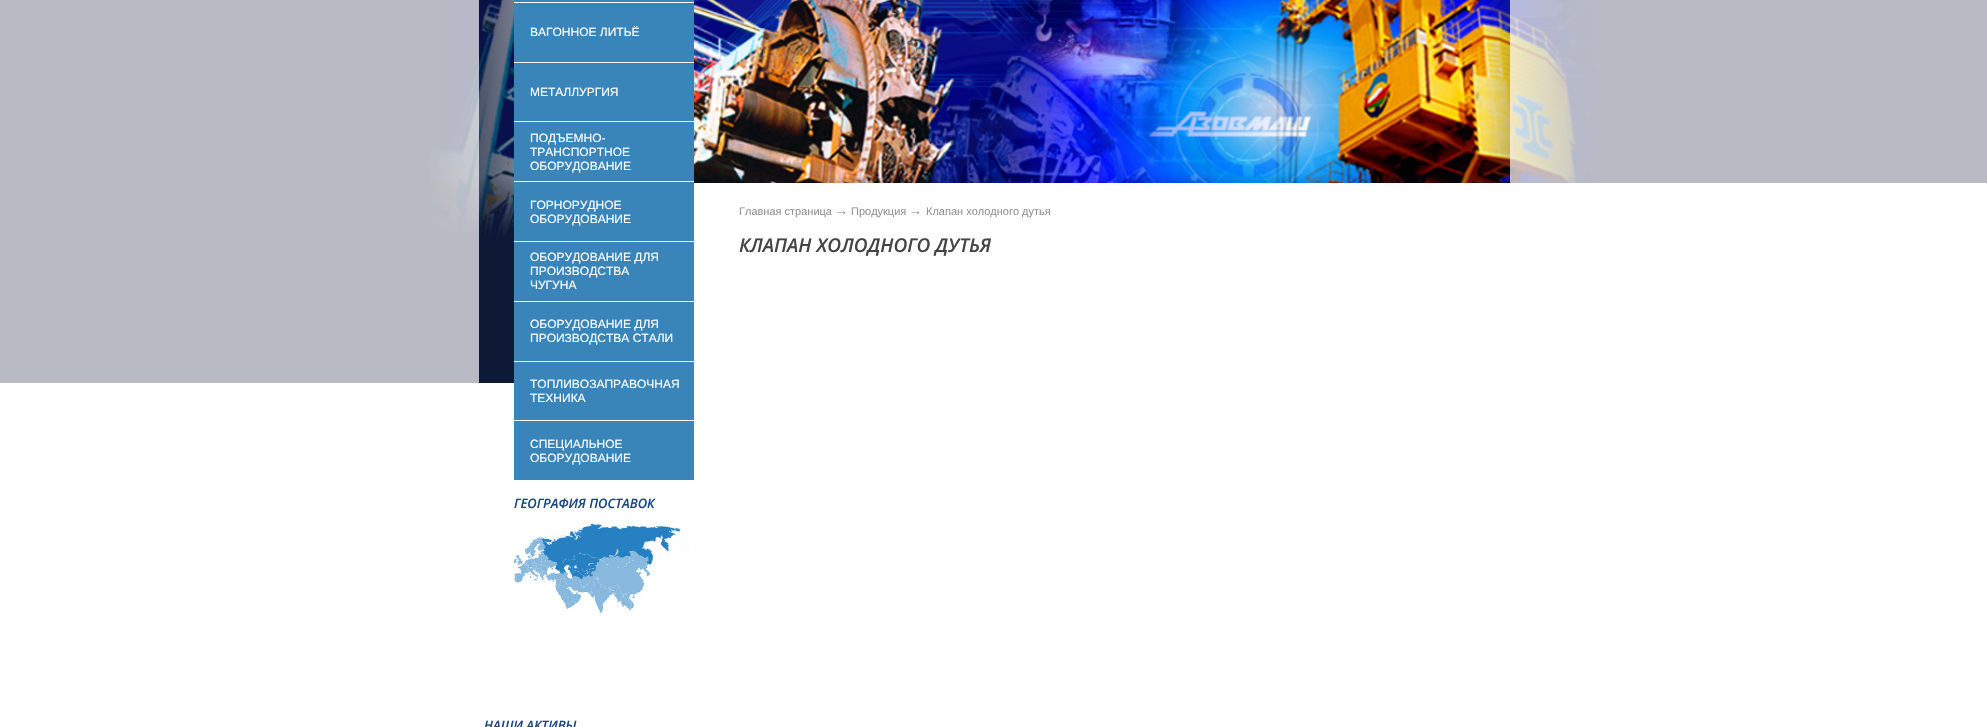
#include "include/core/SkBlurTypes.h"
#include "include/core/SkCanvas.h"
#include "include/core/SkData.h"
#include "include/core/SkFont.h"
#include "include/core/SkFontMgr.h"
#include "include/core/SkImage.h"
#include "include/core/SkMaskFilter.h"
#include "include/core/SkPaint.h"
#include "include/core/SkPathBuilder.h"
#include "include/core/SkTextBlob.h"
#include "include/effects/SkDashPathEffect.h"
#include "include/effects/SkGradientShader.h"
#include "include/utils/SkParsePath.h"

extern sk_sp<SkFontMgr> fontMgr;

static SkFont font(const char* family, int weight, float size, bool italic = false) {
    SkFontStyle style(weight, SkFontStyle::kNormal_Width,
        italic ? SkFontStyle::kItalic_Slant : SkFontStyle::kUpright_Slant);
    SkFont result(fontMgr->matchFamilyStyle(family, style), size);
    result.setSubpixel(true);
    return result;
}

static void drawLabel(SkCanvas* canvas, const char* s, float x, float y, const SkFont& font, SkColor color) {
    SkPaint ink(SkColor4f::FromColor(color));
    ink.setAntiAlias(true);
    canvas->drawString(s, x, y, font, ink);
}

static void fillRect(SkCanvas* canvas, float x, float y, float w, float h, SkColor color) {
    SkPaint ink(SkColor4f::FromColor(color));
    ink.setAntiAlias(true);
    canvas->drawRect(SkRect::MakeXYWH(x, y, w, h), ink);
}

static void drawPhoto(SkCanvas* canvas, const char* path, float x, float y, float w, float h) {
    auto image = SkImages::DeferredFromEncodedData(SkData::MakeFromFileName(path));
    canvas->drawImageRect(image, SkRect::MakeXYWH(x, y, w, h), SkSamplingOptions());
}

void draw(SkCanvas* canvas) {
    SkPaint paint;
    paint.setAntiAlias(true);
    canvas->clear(0xFFFFFFFF);
    fillRect(canvas, 0, 0, 1987, 383, 0xFF0E1935);
    drawPhoto(canvas, "assets/img1.png", 429, 0, 1171, 238);
    fillRect(canvas, 0, 0, 479, 383, 0xB3FFFFFF);
    fillRect(canvas, 1510, 0, 477, 383, 0xB3FFFFFF);
    fillRect(canvas, 514, 0, 180, 2, 0xFF3985B9);
    fillRect(canvas, 514, 2, 180, 1, 0xFFFFFFFF);
    fillRect(canvas, 514, 3, 180, 59, 0xFF3985B9);
    fillRect(canvas, 514, 62, 180, 1, 0xFFFFFFFF);
    SkFont font1 = font("Liberation Sans", 400, 12);
    drawLabel(canvas, "ВАГОННОЕ ЛИТЬЁ", 530, 36, font1, 0xFFFFFFFF);
    fillRect(canvas, 514, 63, 180, 58, 0xFF3985B9);
    fillRect(canvas, 514, 121, 180, 1, 0xFFFFFFFF);
    drawLabel(canvas, "МЕТАЛЛУРГИЯ", 530, 96, font1, 0xFFFFFFFF);
    fillRect(canvas, 514, 122, 180, 59, 0xFF3985B9);
    fillRect(canvas, 514, 181, 180, 1, 0xFFFFFFFF);
    drawLabel(canvas, "ПОДЪЕМНО-", 530, 142, font1, 0xFFFFFFFF);
    drawLabel(canvas, "ТРАНСПОРТНОЕ", 530, 156, font1, 0xFFFFFFFF);
    drawLabel(canvas, "ОБОРУДОВАНИЕ", 530, 170, font1, 0xFFFFFFFF);
    fillRect(canvas, 514, 182, 180, 59, 0xFF3985B9);
    fillRect(canvas, 514, 241, 180, 1, 0xFFFFFFFF);
    drawLabel(canvas, "ГОРНОРУДНОЕ", 530, 209, font1, 0xFFFFFFFF);
    drawLabel(canvas, "ОБОРУДОВАНИЕ", 530, 223, font1, 0xFFFFFFFF);
    fillRect(canvas, 514, 242, 180, 59, 0xFF3985B9);
    fillRect(canvas, 514, 301, 180, 1, 0xFFFFFFFF);
    drawLabel(canvas, "ОБОРУДОВАНИЕ ДЛЯ", 530, 261, font1, 0xFFFFFFFF);
    drawLabel(canvas, "ПРОИЗВОДСТВА", 530, 275, font1, 0xFFFFFFFF);
    drawLabel(canvas, "ЧУГУНА", 530, 289, font1, 0xFFFFFFFF);
    fillRect(canvas, 514, 302, 180, 59, 0xFF3985B9);
    fillRect(canvas, 514, 361, 180, 1, 0xFFFFFFFF);
    drawLabel(canvas, "ОБОРУДОВАНИЕ ДЛЯ", 530, 328, font1, 0xFFFFFFFF);
    drawLabel(canvas, "ПРОИЗВОДСТВА СТАЛИ", 530, 342, font1, 0xFFFFFFFF);
    fillRect(canvas, 514, 362, 180, 58, 0xFF3985B9);
    drawLabel(canvas, "ТОПЛИВОЗАПРАВОЧНАЯ", 530, 388, font1, 0xFFFFFFFF);
    drawLabel(canvas, "ТЕХНИКА", 530, 402, font1, 0xFFFFFFFF);
    fillRect(canvas, 514, 421, 180, 59, 0xFF3985B9);
    drawLabel(canvas, "СПЕЦИАЛЬНОЕ", 530, 448, font1, 0xFFFFFFFF);
    drawLabel(canvas, "ОБОРУДОВАНИЕ", 530, 462, font1, 0xFFFFFFFF);
    SkFont font2 = font("Open Sans", 600, 13, true);
    drawLabel(canvas, "ГЕОГРАФИЯ ПОСТАВОК", 514, 508, font2, 0xFF1A4681);
    drawPhoto(canvas, "assets/img2.png", 514, 522, 175, 91);
    fillRect(canvas, 694, 183, 1293, 200, 0xFFFFFFFF);
    SkFont font3 = font("Liberation Sans", 400, 11);
    drawLabel(canvas, "Главная страница", 739, 215, font3, 0xFF939393);
    SkFont font4 = font("Liberation Sans", 400, 13);
    drawLabel(canvas, "→", 835, 215, font4, 0xFF939393);
    drawLabel(canvas, "Продукция", 851, 215, font3, 0xFF939393);
    drawLabel(canvas, "→", 909, 215, font4, 0xFF939393);
    drawLabel(canvas, "Клапан холодного дутья", 926, 215, font3, 0xFF939393);
    SkFont font5 = font("Open Sans", 600, 19, true);
    drawLabel(canvas, "КЛАПАН ХОЛОДНОГО ДУТЬЯ", 739, 252, font5, 0xFF444444);
    drawLabel(canvas, "НАШИ АКТИВЫ", 484, 730, font2, 0xFF1A4681);
}
